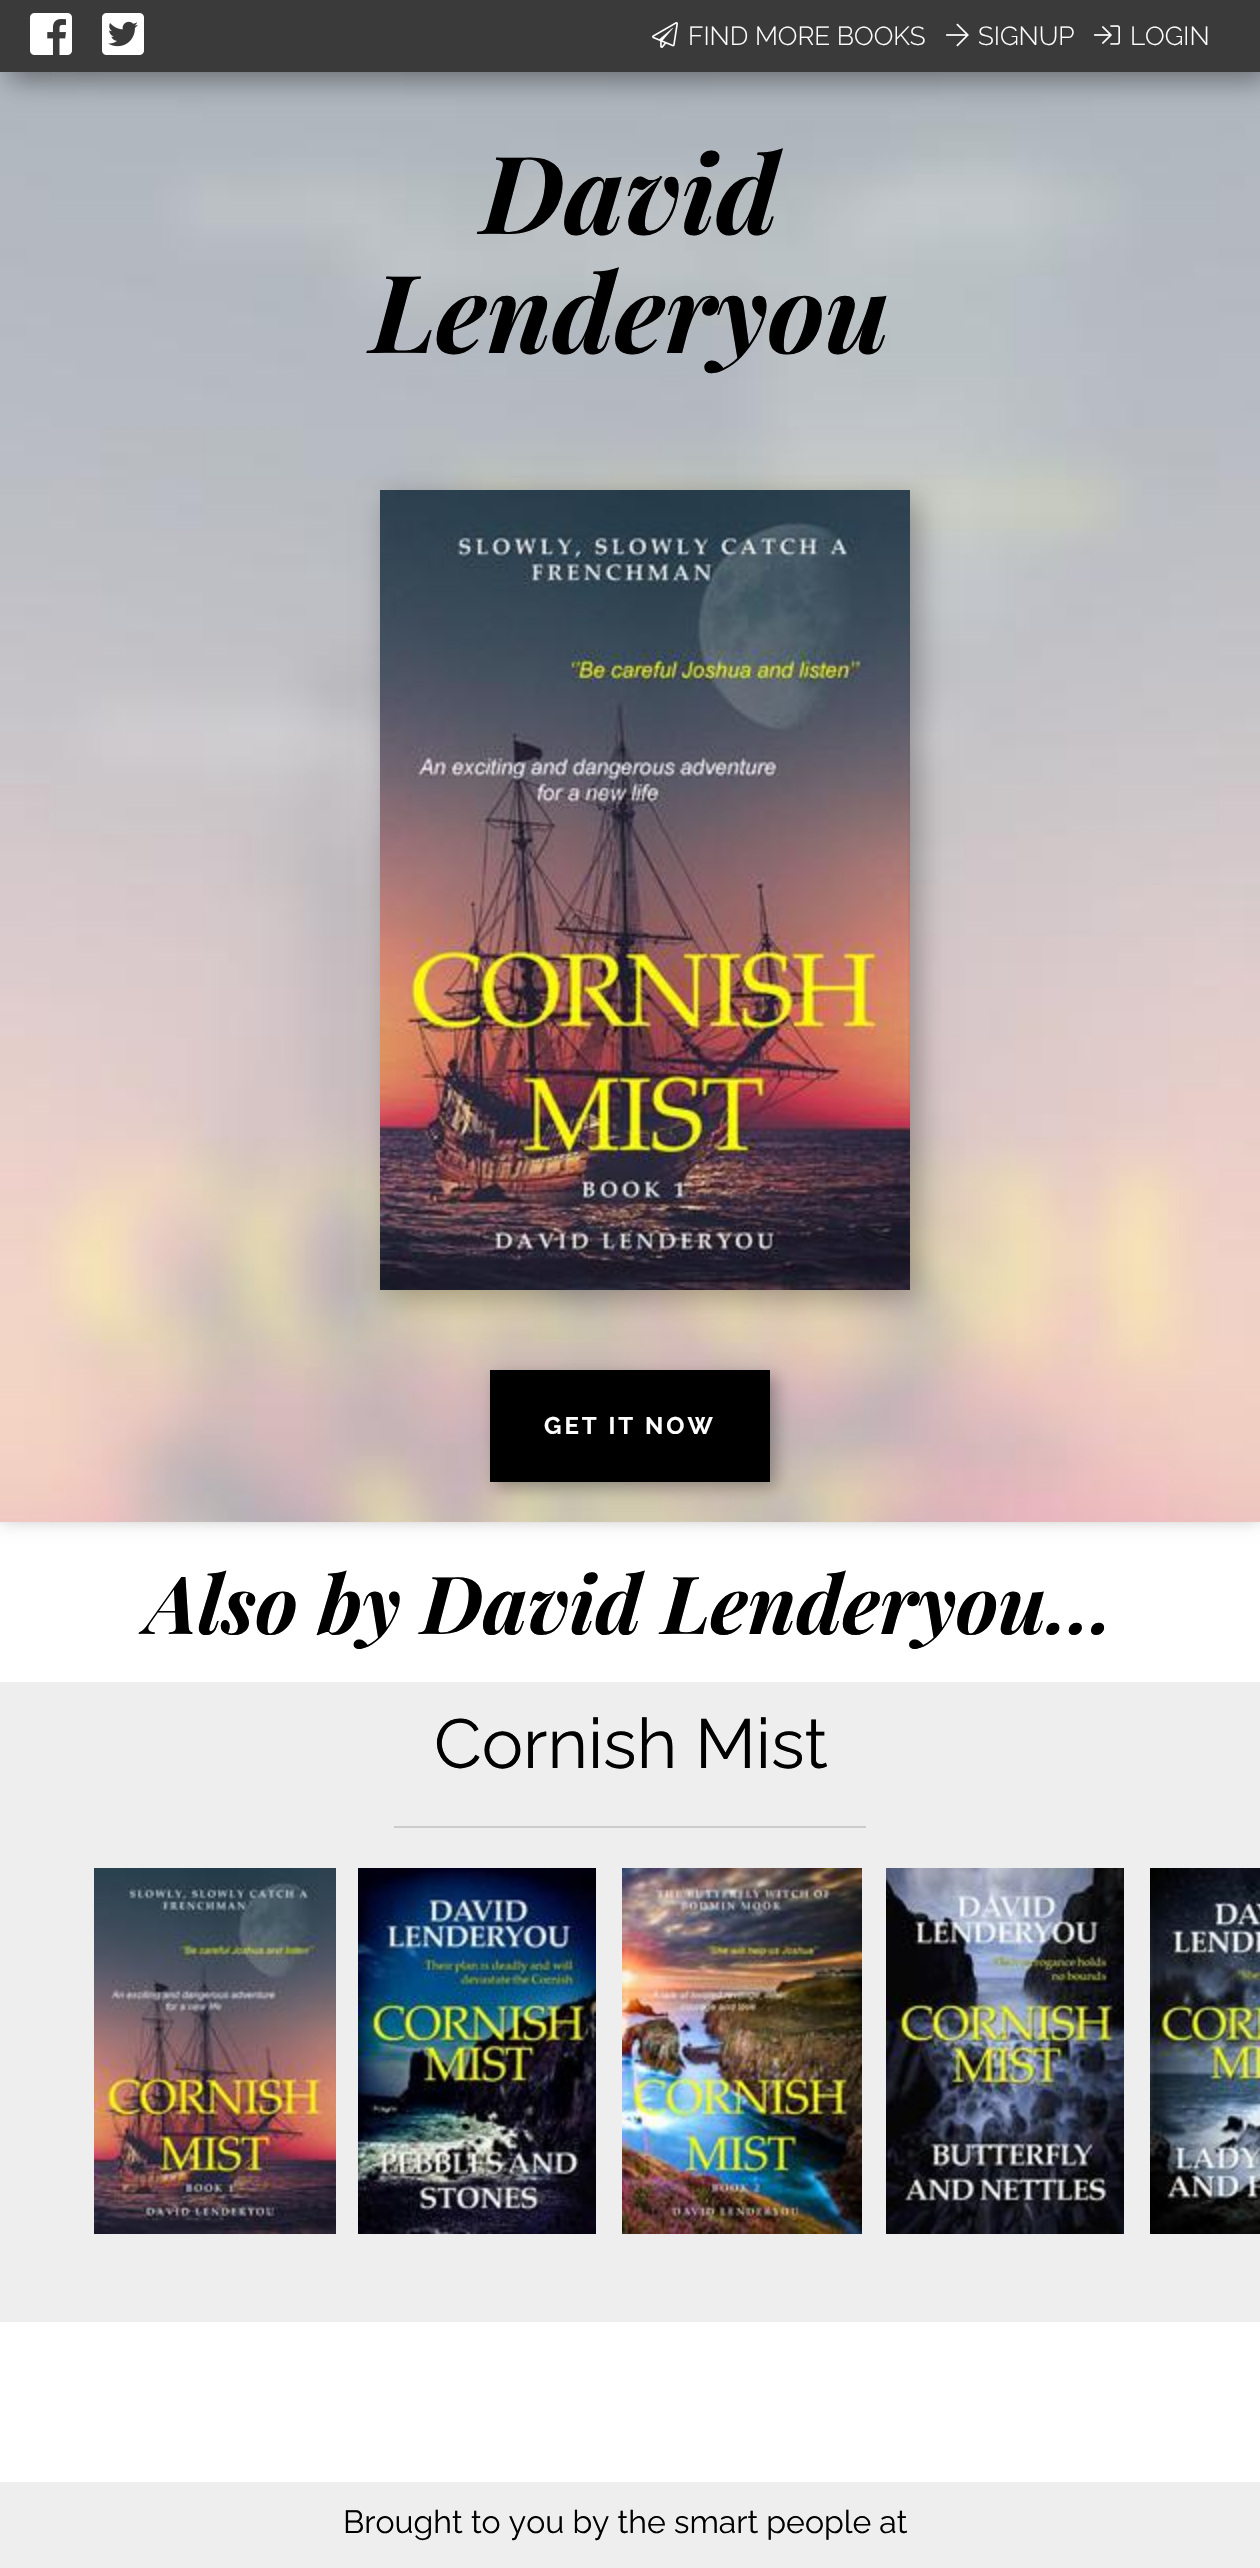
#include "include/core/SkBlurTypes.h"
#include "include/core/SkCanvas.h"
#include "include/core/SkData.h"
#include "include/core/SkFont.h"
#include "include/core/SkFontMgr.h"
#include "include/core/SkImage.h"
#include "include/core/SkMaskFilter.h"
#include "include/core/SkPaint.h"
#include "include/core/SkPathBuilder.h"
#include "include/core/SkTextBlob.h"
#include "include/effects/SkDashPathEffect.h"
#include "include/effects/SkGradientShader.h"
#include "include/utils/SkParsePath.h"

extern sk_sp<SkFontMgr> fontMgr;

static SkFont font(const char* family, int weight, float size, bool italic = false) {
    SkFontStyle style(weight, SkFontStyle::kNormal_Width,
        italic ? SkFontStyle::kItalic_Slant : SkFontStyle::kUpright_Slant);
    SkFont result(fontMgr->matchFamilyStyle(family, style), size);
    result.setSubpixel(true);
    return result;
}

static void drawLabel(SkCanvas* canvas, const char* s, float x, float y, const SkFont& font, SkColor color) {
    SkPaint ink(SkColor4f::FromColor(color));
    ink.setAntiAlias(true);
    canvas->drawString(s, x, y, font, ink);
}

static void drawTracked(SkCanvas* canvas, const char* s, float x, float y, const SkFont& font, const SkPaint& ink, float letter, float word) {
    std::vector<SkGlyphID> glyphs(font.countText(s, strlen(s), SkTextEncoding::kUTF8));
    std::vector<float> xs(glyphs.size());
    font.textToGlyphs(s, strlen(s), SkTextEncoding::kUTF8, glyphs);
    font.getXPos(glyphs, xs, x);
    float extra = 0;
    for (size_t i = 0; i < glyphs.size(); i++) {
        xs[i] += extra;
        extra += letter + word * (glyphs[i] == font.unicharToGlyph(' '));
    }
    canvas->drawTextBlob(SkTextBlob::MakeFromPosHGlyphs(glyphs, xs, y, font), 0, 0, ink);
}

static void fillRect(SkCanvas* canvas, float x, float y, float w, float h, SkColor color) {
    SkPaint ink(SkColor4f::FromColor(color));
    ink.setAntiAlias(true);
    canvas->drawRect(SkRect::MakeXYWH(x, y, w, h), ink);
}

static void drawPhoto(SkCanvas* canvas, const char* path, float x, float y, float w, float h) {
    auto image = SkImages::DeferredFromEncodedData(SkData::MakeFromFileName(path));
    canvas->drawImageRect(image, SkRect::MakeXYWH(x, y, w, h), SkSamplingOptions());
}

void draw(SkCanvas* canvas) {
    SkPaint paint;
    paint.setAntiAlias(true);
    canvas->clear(0xFFFFFFFF);
    paint.setColor(0x4D000000);
    paint.setMaskFilter(SkMaskFilter::MakeBlur(kNormal_SkBlurStyle, 9));
    canvas->drawRect(SkRect::MakeXYWH(0, 68, 1260, 1450), paint);
    paint.setMaskFilter(nullptr);
    drawPhoto(canvas, "assets/img6.png", 0, 72, 1260, 1450);
    paint.setColor(0x66000000);
    paint.setMaskFilter(SkMaskFilter::MakeBlur(kNormal_SkBlurStyle, 14));
    canvas->drawRect(SkRect::MakeXYWH(8, 8, 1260, 72), paint);
    paint.setMaskFilter(nullptr);
    fillRect(canvas, 0, 0, 1260, 72, 0xFF3A3A3A);
    drawPhoto(canvas, "assets/img1.png", 30, 13, 42, 42);
    drawPhoto(canvas, "assets/img2.png", 102, 13, 42, 42);
    drawPhoto(canvas, "assets/img3.png", 652, 22, 26, 26);
    SkFont font1 = font("Raleway", 300, 26);
    drawLabel(canvas, "FIND MORE BOOKS", 688, 45, font1, 0xFFFFFFFF);
    drawPhoto(canvas, "assets/img4.png", 946, 23, 23, 24);
    drawLabel(canvas, "SIGNUP", 978, 45, font1, 0xFFFFFFFF);
    drawPhoto(canvas, "assets/img5.png", 1094, 25, 26, 20);
    drawLabel(canvas, "LOGIN", 1130, 45, font1, 0xFFFFFFFF);
    SkFont font2 = font("Playfair Display", 700, 108, true);
    drawLabel(canvas, "David", 481, 234, font2, 0xFF000000);
    drawLabel(canvas, "Lenderyou", 371, 353, font2, 0xFF000000);
    paint.setColor(0x4D000000);
    paint.setMaskFilter(SkMaskFilter::MakeBlur(kNormal_SkBlurStyle, 14));
    canvas->drawRect(SkRect::MakeXYWH(388, 498, 530, 800), paint);
    paint.setMaskFilter(nullptr);
    drawPhoto(canvas, "assets/img7.png", 380, 490, 530, 800);
    paint.setMaskFilter(SkMaskFilter::MakeBlur(kNormal_SkBlurStyle, 8));
    canvas->drawRect(SkRect::MakeXYWH(496, 1376, 280, 112), paint);
    paint.setMaskFilter(nullptr);
    fillRect(canvas, 490, 1370, 280, 112, 0xFF000000);
    SkFont font3 = font("Raleway", 700, 24);
    paint.setColor(0xFFFFFFFF);
    drawTracked(canvas, "GET IT NOW", 544, 1434, font3, paint, 3, 0);
    SkFont font4 = font("Playfair Display", 700, 80, true);
    drawLabel(canvas, "Also by David Lenderyou...", 146, 1634, font4, 0xFF000000);
    fillRect(canvas, 0, 1682, 1260, 640, 0xFFEEEEEE);
    SkFont font5 = font("Raleway", 400, 69.5f);
    drawLabel(canvas, "Cornish Mist", 434, 1768, font5, 0xFF000000);
    fillRect(canvas, 394, 1826, 472, 2, 0xFFCCCCCC);
    drawPhoto(canvas, "assets/img8.png", 94, 1868, 242, 366);
    drawPhoto(canvas, "assets/img9.png", 358, 1868, 238, 366);
    drawPhoto(canvas, "assets/img10.png", 622, 1868, 240, 366);
    drawPhoto(canvas, "assets/img11.png", 886, 1868, 238, 366);
    drawPhoto(canvas, "assets/img12.png", 1150, 1868, 110, 366);
    fillRect(canvas, 0, 2482, 1260, 86, 0xFFEEEEEE);
    SkFont font6 = font("Raleway", 400, 32);
    drawLabel(canvas, "Brought to you by the smart people at", 343, 2533, font6, 0xFF000000);
}
